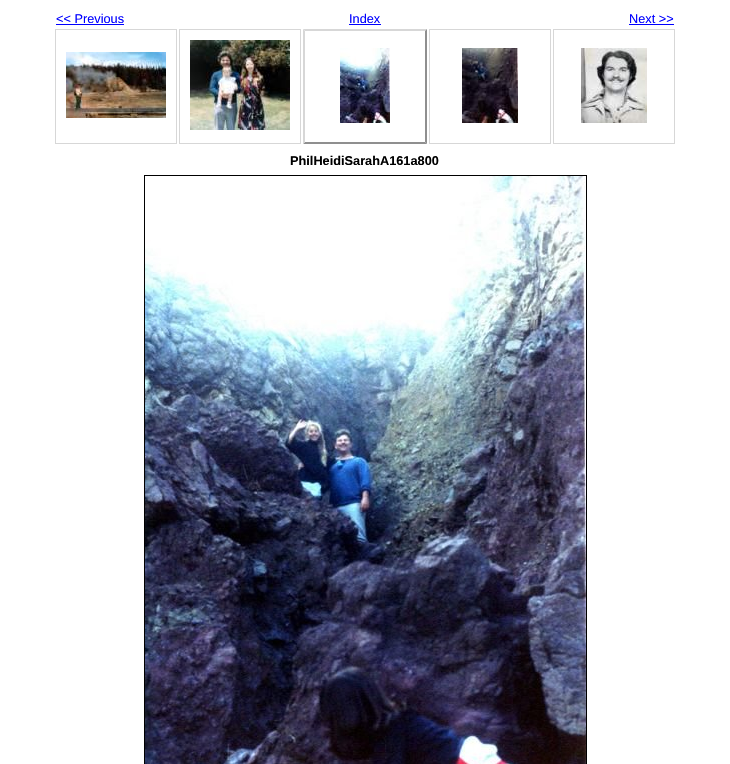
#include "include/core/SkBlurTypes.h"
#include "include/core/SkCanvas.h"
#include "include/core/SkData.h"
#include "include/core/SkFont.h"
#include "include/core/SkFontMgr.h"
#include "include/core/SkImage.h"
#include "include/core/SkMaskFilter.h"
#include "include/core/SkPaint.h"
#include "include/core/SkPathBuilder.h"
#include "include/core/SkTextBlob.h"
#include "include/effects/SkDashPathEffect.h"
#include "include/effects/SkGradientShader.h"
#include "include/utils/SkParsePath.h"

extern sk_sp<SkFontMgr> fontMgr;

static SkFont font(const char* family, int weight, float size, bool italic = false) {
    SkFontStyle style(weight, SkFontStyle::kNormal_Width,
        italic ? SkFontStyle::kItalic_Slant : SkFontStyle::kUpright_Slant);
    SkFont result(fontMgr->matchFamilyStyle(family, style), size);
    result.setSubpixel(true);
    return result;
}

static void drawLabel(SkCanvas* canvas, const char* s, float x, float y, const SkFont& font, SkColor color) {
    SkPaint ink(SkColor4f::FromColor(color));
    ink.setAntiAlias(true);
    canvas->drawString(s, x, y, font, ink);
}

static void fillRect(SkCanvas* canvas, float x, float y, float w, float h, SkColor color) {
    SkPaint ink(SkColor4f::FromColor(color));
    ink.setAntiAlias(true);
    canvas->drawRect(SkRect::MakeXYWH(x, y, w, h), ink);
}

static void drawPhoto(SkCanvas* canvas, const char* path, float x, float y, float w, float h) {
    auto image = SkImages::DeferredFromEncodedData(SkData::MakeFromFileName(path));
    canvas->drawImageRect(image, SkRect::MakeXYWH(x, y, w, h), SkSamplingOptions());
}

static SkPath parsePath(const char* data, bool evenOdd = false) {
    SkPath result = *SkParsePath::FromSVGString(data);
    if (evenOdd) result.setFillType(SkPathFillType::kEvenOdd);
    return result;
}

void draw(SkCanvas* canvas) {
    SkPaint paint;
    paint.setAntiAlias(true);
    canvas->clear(0xFFFFFFFF);
    SkFont font1 = font("Liberation Sans", 400, 12.75f);
    drawLabel(canvas, "<< Previous", 56, 23, font1, 0xFF0000FF);
    fillRect(canvas, 56, 24, 68, 1, 0xFF0000FF);
    drawLabel(canvas, "Index", 349, 23, font1, 0xFF0000FF);
    fillRect(canvas, 349, 24, 32, 1, 0xFF0000FF);
    drawLabel(canvas, "Next >>", 629, 23, font1, 0xFF0000FF);
    fillRect(canvas, 629, 24, 45, 1, 0xFF0000FF);
    paint.setStroke(true);
    paint.setStrokeWidth(1);
    paint.setColor(0xFFD7D7D7);
    canvas->drawRect(SkRect::MakeXYWH(55.5f, 29.5f, 121, 114), paint);
    drawPhoto(canvas, "assets/img1.png", 66, 52, 100, 66);
    canvas->drawRect(SkRect::MakeXYWH(179.5f, 29.5f, 121, 114), paint);
    drawPhoto(canvas, "assets/img2.png", 190, 40, 100, 90);
    paint.setStroke(false);
    canvas->drawPath(parsePath("M303 29H427L425 31H305Z"), paint);
    paint.setColor(0xFF8F8F8F);
    canvas->drawPath(parsePath("M427 29V144L425 142V31Z"), paint);
    canvas->drawPath(parsePath("M427 144H303L305 142H425Z"), paint);
    paint.setColor(0xFFD7D7D7);
    canvas->drawPath(parsePath("M303 144V29L305 31V142Z"), paint);
    drawPhoto(canvas, "assets/img3.png", 340, 48, 50, 75);
    paint.setStroke(true);
    canvas->drawRect(SkRect::MakeXYWH(429.5f, 29.5f, 121, 114), paint);
    drawPhoto(canvas, "assets/img4.png", 462, 48, 56, 75);
    canvas->drawRect(SkRect::MakeXYWH(553.5f, 29.5f, 121, 114), paint);
    drawPhoto(canvas, "assets/img5.png", 581, 48, 66, 75);
    SkFont font2 = font("Liberation Sans", 700, 12.75f);
    drawLabel(canvas, "PhilHeidiSarahA161a800", 290, 165, font2, 0xFF000000);
    paint.setColor(0xFF000000);
    canvas->drawRect(SkRect::MakeXYWH(144.5f, 175.5f, 442, 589), paint);
    drawPhoto(canvas, "assets/img6.png", 145, 176, 441, 588);
}
